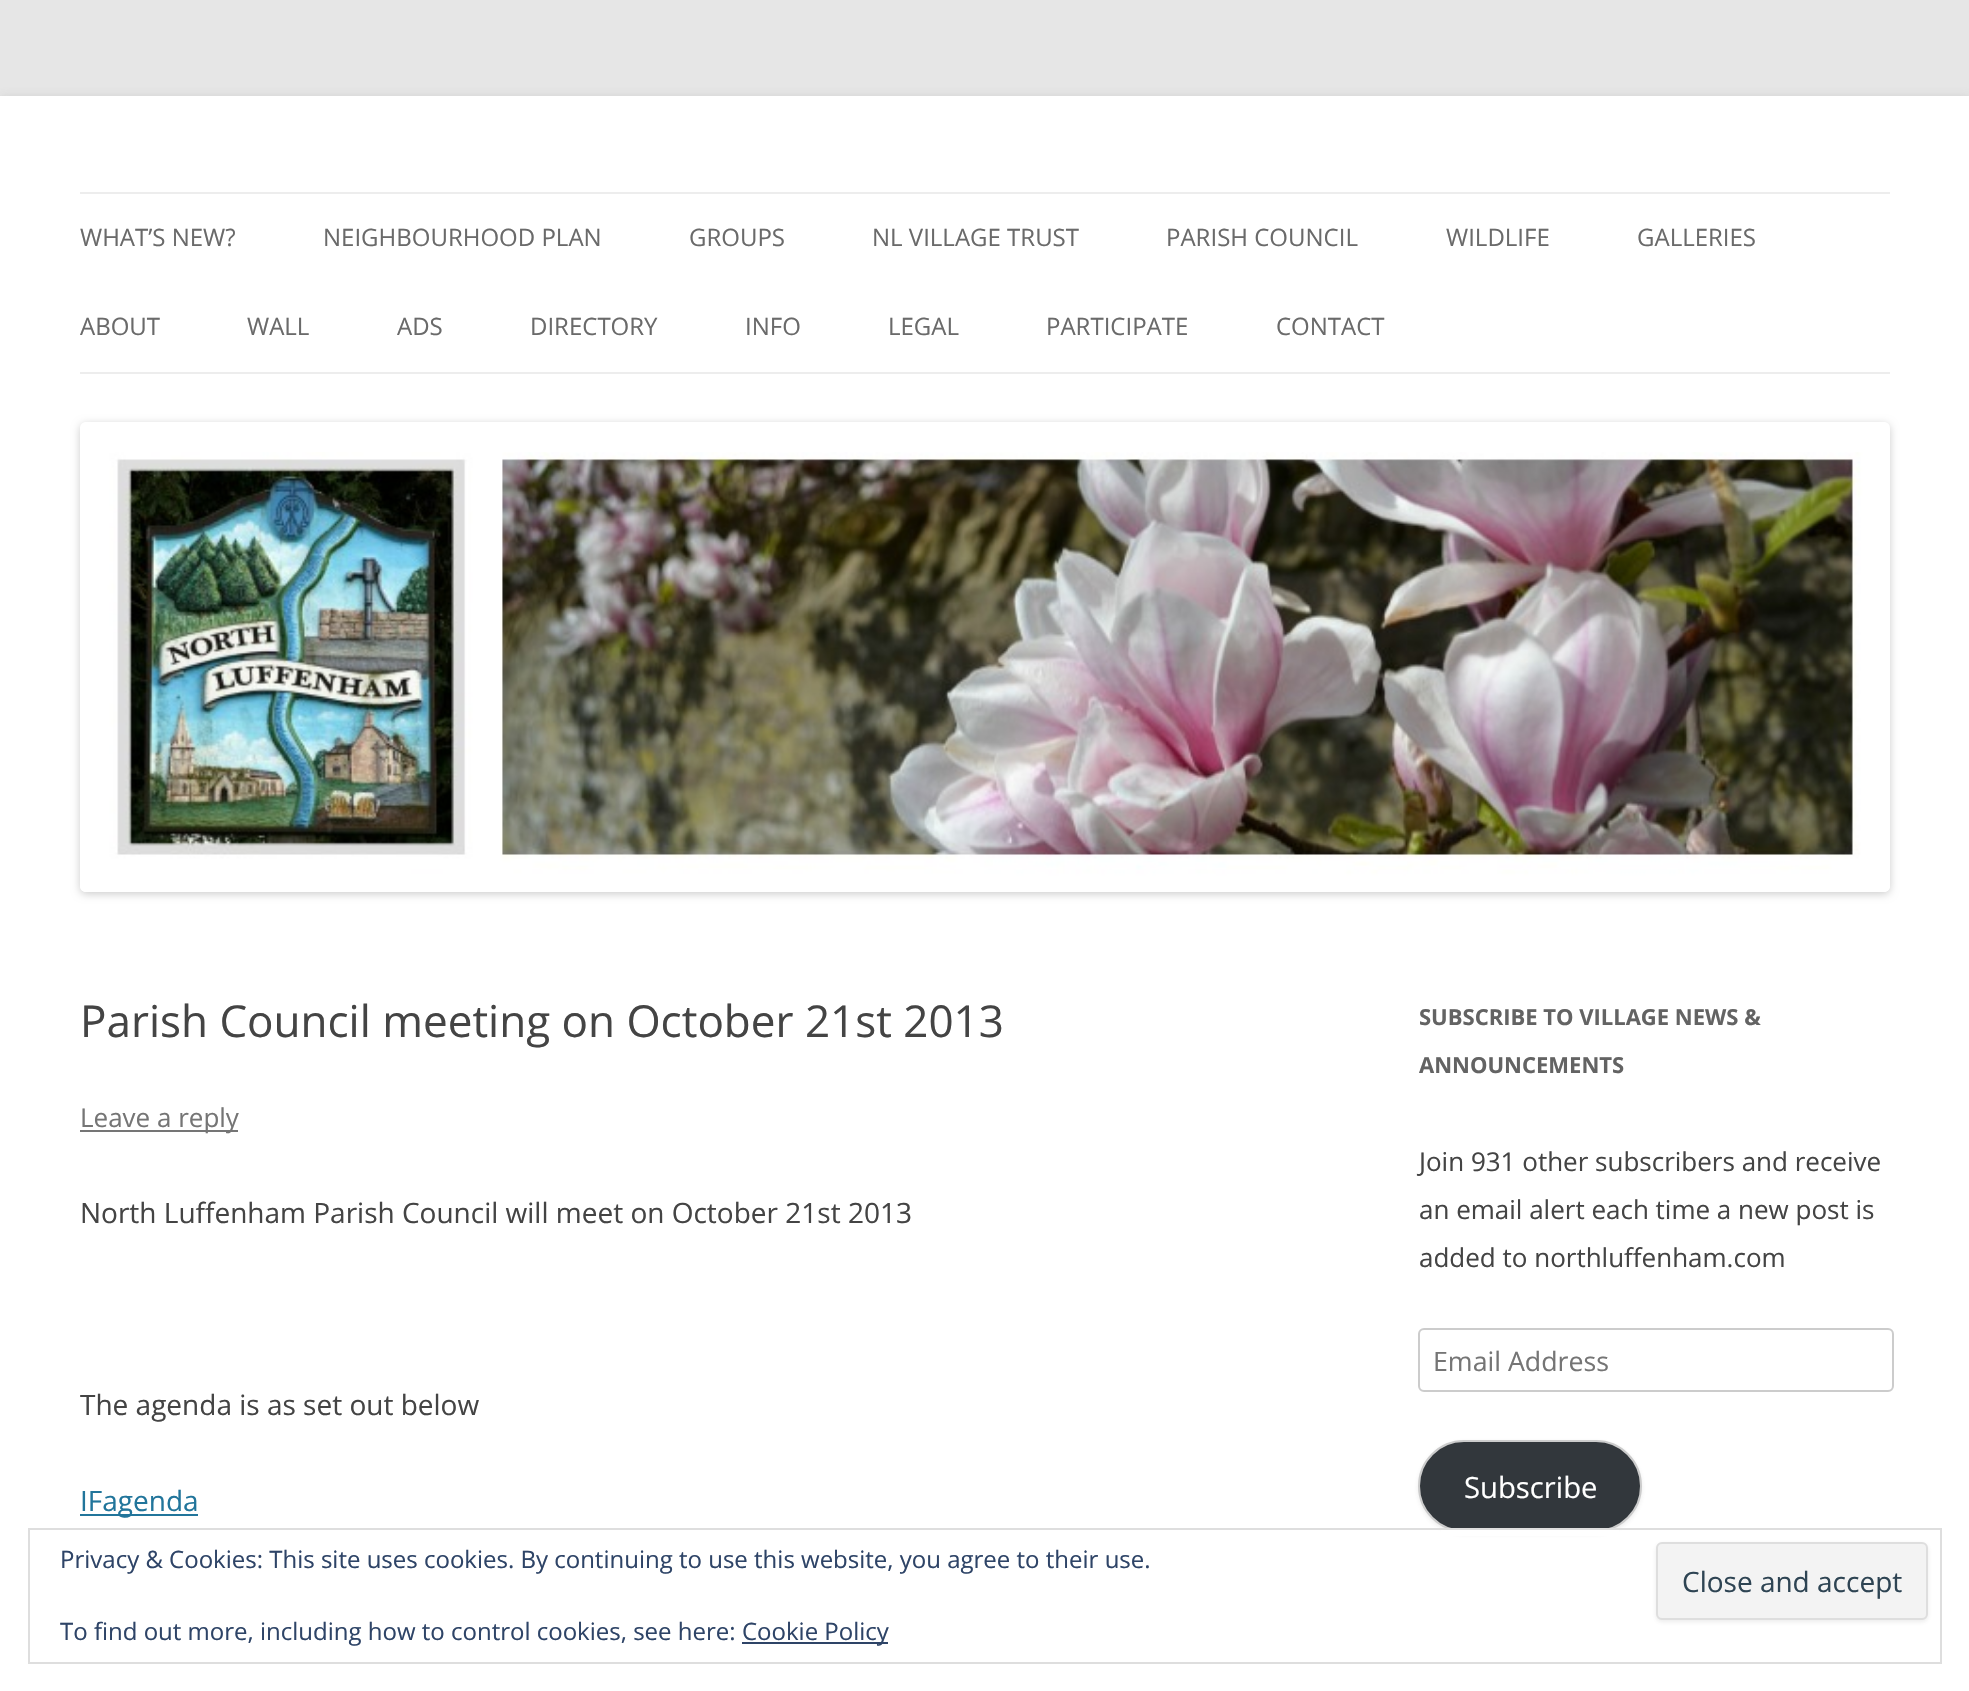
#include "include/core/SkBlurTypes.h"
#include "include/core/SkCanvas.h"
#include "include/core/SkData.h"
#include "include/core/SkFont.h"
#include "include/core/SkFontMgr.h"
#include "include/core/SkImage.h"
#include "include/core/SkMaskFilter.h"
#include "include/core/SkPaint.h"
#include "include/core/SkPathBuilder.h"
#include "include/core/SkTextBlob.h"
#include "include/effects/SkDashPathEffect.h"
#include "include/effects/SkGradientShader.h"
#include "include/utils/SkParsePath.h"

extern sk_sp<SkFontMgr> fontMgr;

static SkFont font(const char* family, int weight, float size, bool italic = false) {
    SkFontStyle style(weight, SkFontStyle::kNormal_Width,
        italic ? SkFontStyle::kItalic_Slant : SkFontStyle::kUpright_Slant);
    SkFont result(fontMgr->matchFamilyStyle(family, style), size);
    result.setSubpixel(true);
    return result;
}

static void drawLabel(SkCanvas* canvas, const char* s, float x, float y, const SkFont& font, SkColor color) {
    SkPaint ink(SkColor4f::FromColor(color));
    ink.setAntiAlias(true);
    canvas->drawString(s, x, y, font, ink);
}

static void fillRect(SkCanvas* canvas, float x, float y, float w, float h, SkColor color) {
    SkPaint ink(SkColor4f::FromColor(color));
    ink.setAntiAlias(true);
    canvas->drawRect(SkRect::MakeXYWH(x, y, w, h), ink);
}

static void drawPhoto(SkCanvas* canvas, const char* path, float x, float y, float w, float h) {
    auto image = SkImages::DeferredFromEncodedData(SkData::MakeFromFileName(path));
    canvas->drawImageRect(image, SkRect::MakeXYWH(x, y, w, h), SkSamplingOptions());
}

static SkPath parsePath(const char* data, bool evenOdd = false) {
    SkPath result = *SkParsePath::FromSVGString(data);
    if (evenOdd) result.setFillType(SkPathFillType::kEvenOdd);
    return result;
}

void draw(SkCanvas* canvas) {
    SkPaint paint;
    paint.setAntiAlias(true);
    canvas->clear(0xFFE6E6E6);
    paint.setColor(0x4D646464);
    paint.setMaskFilter(SkMaskFilter::MakeBlur(kNormal_SkBlurStyle, 6));
    canvas->drawRect(SkRect::MakeXYWH(0, 100, 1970, 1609), paint);
    paint.setMaskFilter(nullptr);
    fillRect(canvas, 0, 96, 1969, 1595, 0xFFFFFFFF);
    fillRect(canvas, 80, 192, 1810, 2, 0xFFEDEDED);
    fillRect(canvas, 80, 372, 1810, 2, 0xFFEDEDED);
    SkFont font1 = font("Open Sans", 400, 24);
    drawLabel(canvas, "WHAT’S NEW?", 80, 246, font1, 0xFF6A6A6A);
    drawLabel(canvas, "NEIGHBOURHOOD PLAN", 323, 246, font1, 0xFF6A6A6A);
    drawLabel(canvas, "GROUPS", 689, 246, font1, 0xFF6A6A6A);
    drawLabel(canvas, "NL VILLAGE TRUST", 872, 246, font1, 0xFF6A6A6A);
    drawLabel(canvas, "PARISH COUNCIL", 1166, 246, font1, 0xFF6A6A6A);
    drawLabel(canvas, "WILDLIFE", 1446, 246, font1, 0xFF6A6A6A);
    drawLabel(canvas, "GALLERIES", 1637, 246, font1, 0xFF6A6A6A);
    drawLabel(canvas, "ABOUT", 80, 335, font1, 0xFF6A6A6A);
    drawLabel(canvas, "WALL", 247, 335, font1, 0xFF6A6A6A);
    drawLabel(canvas, "ADS", 397, 335, font1, 0xFF6A6A6A);
    drawLabel(canvas, "DIRECTORY", 530, 335, font1, 0xFF6A6A6A);
    drawLabel(canvas, "INFO", 745, 335, font1, 0xFF6A6A6A);
    drawLabel(canvas, "LEGAL", 888, 335, font1, 0xFF6A6A6A);
    drawLabel(canvas, "PARTICIPATE", 1046, 335, font1, 0xFF6A6A6A);
    drawLabel(canvas, "CONTACT", 1276, 335, font1, 0xFF6A6A6A);
    canvas->save();
    canvas->clipPath(parsePath("M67 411H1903V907H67ZM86 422H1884C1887.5 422 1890 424.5 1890 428V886C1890 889.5 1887.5 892 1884 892H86C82.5 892 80 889.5 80 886V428C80 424.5 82.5 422 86 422Z", true), true);
    paint.setColor(0x33000000);
    paint.setMaskFilter(SkMaskFilter::MakeBlur(kNormal_SkBlurStyle, 4));
    canvas->drawRoundRect(SkRect::MakeXYWH(80, 424, 1810, 470), 6, 6, paint);
    paint.setMaskFilter(nullptr);
    canvas->restore();
    drawPhoto(canvas, "assets/img1.png", 80, 452, 1810, 440);
    SkFont font2 = font("Open Sans", 400, 44);
    drawLabel(canvas, "Parish Council meeting on October 21st 2013", 80, 1037, font2, 0xFF444444);
    fillRect(canvas, 80, 1130, 158, 2, 0xFF757575);
    SkFont font3 = font("Open Sans", 400, 26);
    drawLabel(canvas, "Leave a reply", 80, 1127, font3, 0xFF757575);
    SkFont font4 = font("Open Sans", 400, 28);
    drawLabel(canvas, "North Luffenham Parish Council will meet on October 21st 2013", 80, 1223, font4, 0xFF444444);
    drawLabel(canvas, "The agenda is as set out below", 80, 1415, font4, 0xFF444444);
    fillRect(canvas, 80, 1514, 118, 2, 0xFF21759B);
    drawLabel(canvas, "IFagenda", 80, 1511, font4, 0xFF21759B);
    SkFont font5 = font("Open Sans", 700, 22);
    drawLabel(canvas, "SUBSCRIBE TO VILLAGE NEWS &", 1419, 1025, font5, 0xFF636363);
    drawLabel(canvas, "ANNOUNCEMENTS", 1419, 1073, font5, 0xFF636363);
    drawLabel(canvas, "Join 931 other subscribers and receive", 1419, 1171, font3, 0xFF444444);
    drawLabel(canvas, "an email alert each time a new post is", 1419, 1219, font3, 0xFF444444);
    drawLabel(canvas, "added to northluffenham.com", 1419, 1267, font3, 0xFF444444);
    paint.setStroke(true);
    paint.setStrokeWidth(2);
    paint.setColor(0xFFCCCCCC);
    canvas->drawRoundRect(SkRect::MakeXYWH(1419, 1329, 474, 62), 5, 5, paint);
    SkFont font6 = font("Open Sans", 400, 26.75f);
    drawLabel(canvas, "Email Address", 1433, 1371, font6, 0xFF757575);
    paint.setStroke(false);
    paint.setColor(0x1A404040);
    paint.setMaskFilter(SkMaskFilter::MakeBlur(kNormal_SkBlurStyle, 2));
    canvas->drawRoundRect(SkRect::MakeXYWH(1418, 1442, 224, 92), 46, 46, paint);
    paint.setMaskFilter(nullptr);
    paint.setColor(0xFF32373C);
    canvas->drawRoundRect(SkRect::MakeXYWH(1419, 1441, 222, 90), 45, 45, paint);
    paint.setStroke(true);
    paint.setColor(0xFFCCCCCC);
    canvas->drawRoundRect(SkRect::MakeXYWH(1419, 1441, 222, 90), 45, 45, paint);
    SkFont font7 = font("Open Sans", 400, 29.25f);
    drawLabel(canvas, "Subscribe", 1464, 1498, font7, 0xFFFFFFFF);
    fillRect(canvas, 1441, 1530, 178, 6, 0xFFFFFFFF);
    paint.setColor(0xFFDEDEDE);
    canvas->drawRect(SkRect::MakeXYWH(29, 1529, 1912, 134), paint);
    drawLabel(canvas, "Privacy & Cookies: This site uses cookies. By continuing to use this website, you agree to their use.", 60, 1568, font1, 0xFF2E4467);
    paint.setStroke(false);
    paint.setColor(0x1A404040);
    paint.setMaskFilter(SkMaskFilter::MakeBlur(kNormal_SkBlurStyle, 2));
    canvas->drawRoundRect(SkRect::MakeXYWH(1656, 1544, 272, 78), 6, 6, paint);
    paint.setMaskFilter(nullptr);
    paint.setColor(0xFFF3F3F3);
    canvas->drawRoundRect(SkRect::MakeXYWH(1657, 1543, 270, 76), 5, 5, paint);
    paint.setStroke(true);
    paint.setColor(0xFFDEDEDE);
    canvas->drawRoundRect(SkRect::MakeXYWH(1657, 1543, 270, 76), 5, 5, paint);
    drawLabel(canvas, "Close and accept", 1682, 1592, font4, 0xFF2E4453);
    drawLabel(canvas, "To find out more, including how to control cookies, see here:", 60, 1640, font1, 0xFF2E4467);
    fillRect(canvas, 742, 1642, 146, 2, 0xFF2E4467);
    drawLabel(canvas, "Cookie Policy", 742, 1640, font1, 0xFF2E4467);
}
